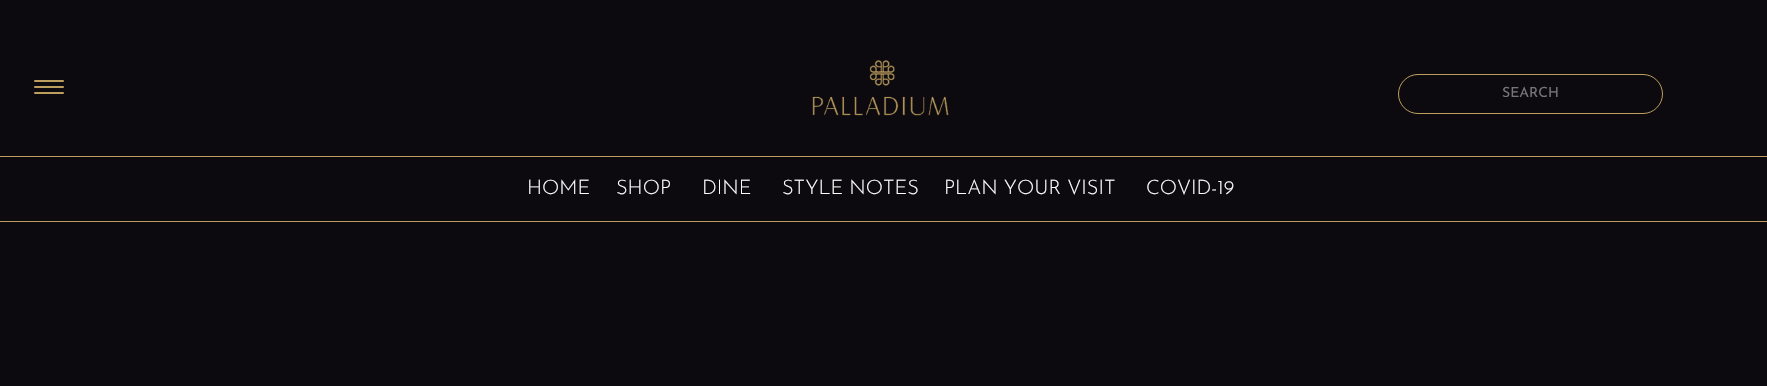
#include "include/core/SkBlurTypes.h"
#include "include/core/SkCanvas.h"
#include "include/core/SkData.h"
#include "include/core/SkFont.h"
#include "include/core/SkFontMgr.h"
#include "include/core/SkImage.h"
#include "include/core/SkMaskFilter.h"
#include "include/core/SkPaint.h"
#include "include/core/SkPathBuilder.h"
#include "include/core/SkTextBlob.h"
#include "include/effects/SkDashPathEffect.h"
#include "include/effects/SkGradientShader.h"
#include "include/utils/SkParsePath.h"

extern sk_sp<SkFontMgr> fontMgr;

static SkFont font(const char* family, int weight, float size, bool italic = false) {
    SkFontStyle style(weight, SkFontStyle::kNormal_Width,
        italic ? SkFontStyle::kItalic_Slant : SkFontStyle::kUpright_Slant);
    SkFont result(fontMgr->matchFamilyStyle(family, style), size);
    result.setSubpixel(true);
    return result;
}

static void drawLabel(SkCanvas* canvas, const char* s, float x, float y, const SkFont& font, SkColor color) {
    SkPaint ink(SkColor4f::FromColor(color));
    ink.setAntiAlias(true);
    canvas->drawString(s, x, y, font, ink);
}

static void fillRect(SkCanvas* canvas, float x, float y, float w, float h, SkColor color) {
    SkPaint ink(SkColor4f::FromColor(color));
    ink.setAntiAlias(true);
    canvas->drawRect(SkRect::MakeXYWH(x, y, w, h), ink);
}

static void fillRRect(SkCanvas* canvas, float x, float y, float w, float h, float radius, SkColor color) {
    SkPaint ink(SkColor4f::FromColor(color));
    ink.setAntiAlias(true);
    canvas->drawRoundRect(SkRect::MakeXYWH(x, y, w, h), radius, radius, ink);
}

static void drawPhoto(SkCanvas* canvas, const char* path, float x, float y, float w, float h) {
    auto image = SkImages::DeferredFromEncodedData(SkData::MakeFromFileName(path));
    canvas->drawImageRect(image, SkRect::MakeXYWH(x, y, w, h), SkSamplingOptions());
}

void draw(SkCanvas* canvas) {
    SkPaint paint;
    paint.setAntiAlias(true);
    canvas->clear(0xFF0C0A0F);
    fillRRect(canvas, 34, 80, 30, 2, 1, 0xFFBC9E5E);
    fillRRect(canvas, 34, 86, 30, 2, 1, 0xFFBC9E5E);
    fillRRect(canvas, 34, 92, 30, 2, 1, 0xFFBC9E5E);
    drawPhoto(canvas, "assets/img1.png", 812, 60, 137, 56);
    fillRect(canvas, 0, 156, 1767, 1, 0xFFBC9E5E);
    fillRect(canvas, 0, 221, 1767, 1, 0xFFBC9E5E);
    paint.setStroke(true);
    paint.setStrokeWidth(1);
    paint.setColor(0xFFBC9E5E);
    canvas->drawRoundRect(SkRect::MakeXYWH(1398.5f, 74.5f, 264, 39), 19.5f, 19.5f, paint);
    SkFont font1 = font("Josefin Sans", 400, 14);
    drawLabel(canvas, "SEARCH", 1502, 97, font1, 0xFF767676);
    SkFont font2 = font("Josefin Sans", 300, 20);
    drawLabel(canvas, "HOME", 527, 194, font2, 0xFFFFFFFF);
    drawLabel(canvas, "SHOP", 616, 194, font2, 0xFFFFFFFF);
    drawLabel(canvas, "DINE", 702, 194, font2, 0xFFFFFFFF);
    drawLabel(canvas, "STYLE NOTES", 782, 194, font2, 0xFFFFFFFF);
    drawLabel(canvas, "PLAN YOUR VISIT", 944, 194, font2, 0xFFFFFFFF);
    drawLabel(canvas, "COVID-19", 1146, 194, font2, 0xFFFFFFFF);
}
